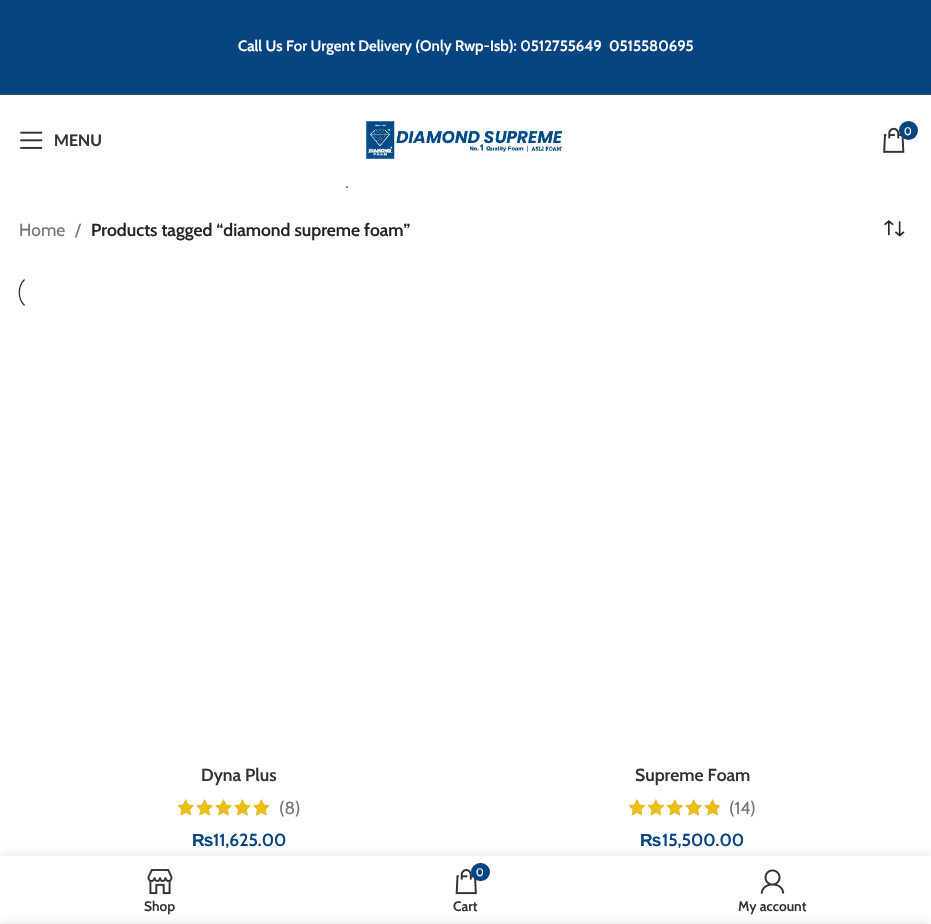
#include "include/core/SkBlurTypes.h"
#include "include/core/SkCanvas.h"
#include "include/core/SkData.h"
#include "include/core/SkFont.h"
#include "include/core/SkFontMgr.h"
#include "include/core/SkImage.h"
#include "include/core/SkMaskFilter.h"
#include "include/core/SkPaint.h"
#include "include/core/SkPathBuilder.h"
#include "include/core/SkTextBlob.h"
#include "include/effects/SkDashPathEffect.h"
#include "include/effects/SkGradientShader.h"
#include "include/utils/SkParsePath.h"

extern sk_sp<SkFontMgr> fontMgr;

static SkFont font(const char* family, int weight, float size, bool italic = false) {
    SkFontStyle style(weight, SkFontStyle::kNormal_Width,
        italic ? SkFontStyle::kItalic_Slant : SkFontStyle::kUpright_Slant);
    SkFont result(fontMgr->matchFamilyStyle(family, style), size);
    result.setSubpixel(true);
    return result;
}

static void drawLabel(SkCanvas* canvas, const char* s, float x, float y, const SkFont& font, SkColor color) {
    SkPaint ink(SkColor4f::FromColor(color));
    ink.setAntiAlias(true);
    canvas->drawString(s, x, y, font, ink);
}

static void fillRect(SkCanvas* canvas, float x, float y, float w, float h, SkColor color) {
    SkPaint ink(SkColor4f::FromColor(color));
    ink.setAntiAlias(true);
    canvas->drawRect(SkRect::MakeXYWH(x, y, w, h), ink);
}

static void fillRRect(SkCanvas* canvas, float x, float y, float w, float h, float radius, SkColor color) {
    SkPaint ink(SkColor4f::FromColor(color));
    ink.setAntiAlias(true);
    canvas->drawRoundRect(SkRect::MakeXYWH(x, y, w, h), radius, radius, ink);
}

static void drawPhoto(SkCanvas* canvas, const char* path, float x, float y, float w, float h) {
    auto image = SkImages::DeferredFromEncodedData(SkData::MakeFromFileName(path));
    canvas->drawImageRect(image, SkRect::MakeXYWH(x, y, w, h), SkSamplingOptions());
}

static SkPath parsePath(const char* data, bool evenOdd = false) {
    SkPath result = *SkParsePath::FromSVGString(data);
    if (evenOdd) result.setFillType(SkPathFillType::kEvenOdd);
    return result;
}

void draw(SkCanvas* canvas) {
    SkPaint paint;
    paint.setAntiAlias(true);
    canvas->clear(0xFFFFFFFF);
    fillRect(canvas, 0, 0, 931, 94, 0xFF074481);
    fillRect(canvas, 0, 94, 931, 1, 0xFF3A4D69);
    SkFont font1 = font("Cabin", 600, 15);
    drawLabel(canvas, "Call Us For Urgent Delivery (Only Rwp-Isb): 0512755649", 238, 51, font1, 0xFFFFFFFF);
    drawLabel(canvas, "0515580695", 609, 51, font1, 0xFFFFFFFF);
    drawPhoto(canvas, "assets/img1.png", 366, 121, 199, 38);
    drawPhoto(canvas, "assets/img2.png", 883, 127, 22, 26);
    paint.setColor(0xFF074481);
    canvas->drawCircle(908.5f, 130.5f, 9.5f, paint);
    SkFont font2 = font("Cabin", 400, 11);
    drawLabel(canvas, "0", 904, 135, font2, 0xFFFFFFFF);
    drawPhoto(canvas, "assets/img3.png", 20, 131, 23, 18);
    SkFont font3 = font("Lato", 700, 16);
    drawLabel(canvas, "MENU", 54, 146, font3, 0xFF333333);
    SkFont font4 = font("Cabin", 400, 17.5f);
    drawLabel(canvas, "Home", 19, 236, font4, 0xFF767676);
    drawLabel(canvas, "/", 75, 236, font4, 0xFF767676);
    SkFont font5 = font("Cabin", 600, 17.5f);
    drawLabel(canvas, "Products tagged “diamond supreme foam”", 91, 236, font5, 0xFF242424);
    drawPhoto(canvas, "assets/img4.png", 884, 220, 21, 17);
    paint.setStroke(true);
    paint.setStrokeWidth(1.2f);
    paint.setColor(0xFF242424);
    canvas->drawPath(parsePath("M24.5 305.5C17.5 298.5 17.5 286.5 24.5 279.5"), paint);
    drawLabel(canvas, "Dyna Plus", 201, 781, font5, 0xFF333333);
    drawPhoto(canvas, "assets/img5.png", 177, 799, 93, 17);
    drawPhoto(canvas, "assets/img6.png", 178, 799, 90, 17);
    drawLabel(canvas, "(8)", 279, 814, font4, 0xFF767676);
    SkFont font6 = font("Liberation Sans", 700, 17.5f);
    drawLabel(canvas, "₨", 192, 846, font6, 0xFF074481);
    drawLabel(canvas, "11,625.00", 213, 846, font5, 0xFF074481);
    drawLabel(canvas, "Supreme Foam", 635, 781, font5, 0xFF333333);
    drawPhoto(canvas, "assets/img7.png", 629, 799, 92, 17);
    drawPhoto(canvas, "assets/img8.png", 629, 799, 90, 17);
    drawLabel(canvas, "(14)", 729, 814, font4, 0xFF767676);
    drawLabel(canvas, "₨", 640, 846, font6, 0xFF074481);
    drawLabel(canvas, "15,500.00", 662, 846, font5, 0xFF074481);
    drawLabel(canvas, ".", 345, 188, font4, 0xFF767676);
    paint.setStroke(false);
    paint.setColor(0x1F000000);
    paint.setMaskFilter(SkMaskFilter::MakeBlur(kNormal_SkBlurStyle, 5.5f));
    canvas->drawRect(SkRect::MakeXYWH(0, 856, 931, 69), paint);
    paint.setMaskFilter(nullptr);
    fillRect(canvas, 0, 856, 931, 68, 0xFFFFFFFF);
    drawPhoto(canvas, "assets/img9.png", 147, 869, 26, 26);
    SkFont font7 = font("Cabin", 600, 13.75f);
    drawLabel(canvas, "Shop", 144, 911, font7, 0xFF333333);
    drawPhoto(canvas, "assets/img10.png", 455, 869, 22, 26);
    fillRRect(canvas, 471, 863, 19, 18, 9, 0xFF074481);
    drawLabel(canvas, "0", 476, 876, font2, 0xFFFFFFFF);
    drawLabel(canvas, "Cart", 453, 911, font7, 0xFF333333);
    drawPhoto(canvas, "assets/img11.png", 760, 869, 25, 25);
    drawLabel(canvas, "My account", 738, 911, font7, 0xFF333333);
    paint.setColor(0x24000000);
    paint.setMaskFilter(SkMaskFilter::MakeBlur(kNormal_SkBlurStyle, 5.5f));
    canvas->drawRect(SkRect::MakeXYWH(0, 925, 931, 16), paint);
    paint.setMaskFilter(nullptr);
}
